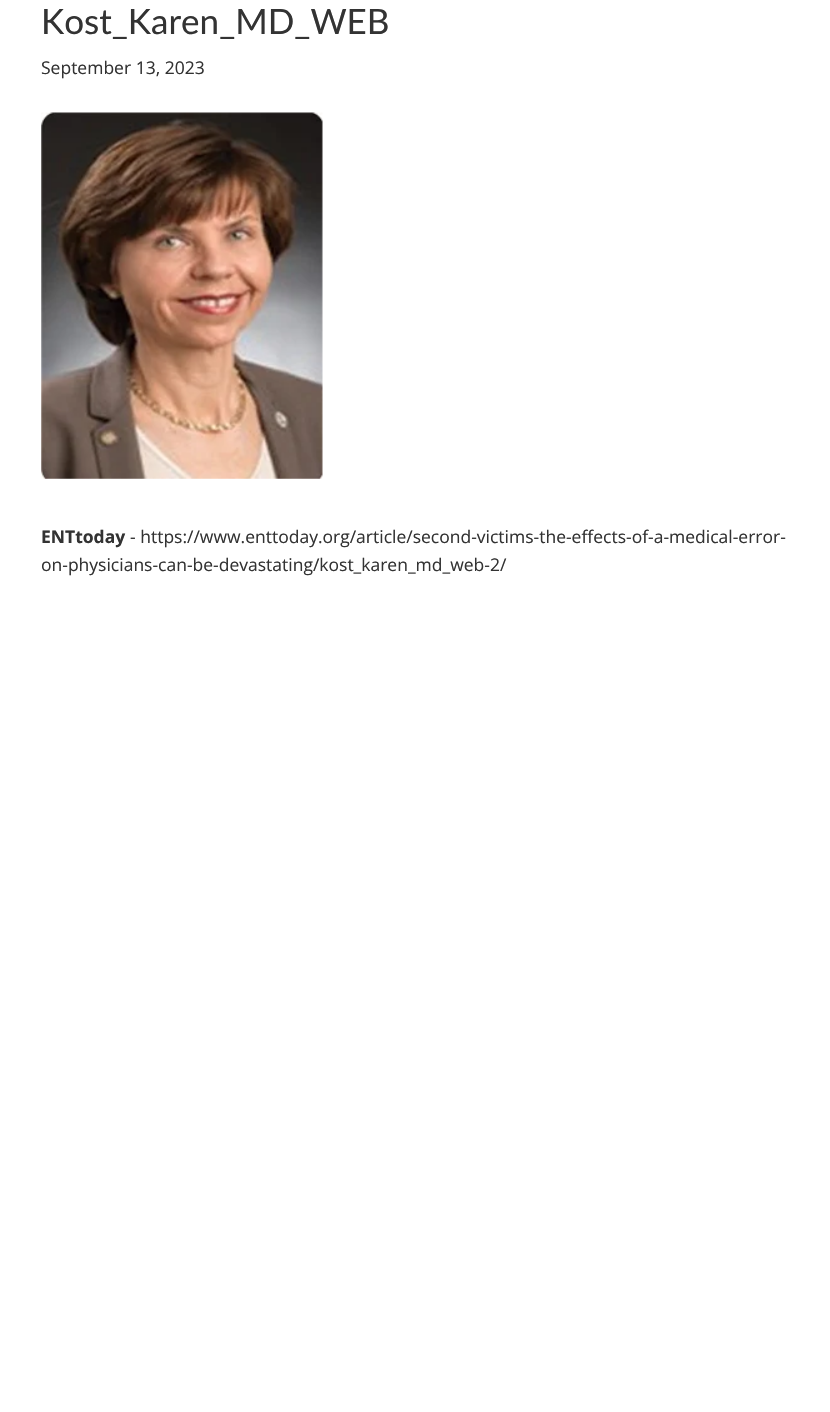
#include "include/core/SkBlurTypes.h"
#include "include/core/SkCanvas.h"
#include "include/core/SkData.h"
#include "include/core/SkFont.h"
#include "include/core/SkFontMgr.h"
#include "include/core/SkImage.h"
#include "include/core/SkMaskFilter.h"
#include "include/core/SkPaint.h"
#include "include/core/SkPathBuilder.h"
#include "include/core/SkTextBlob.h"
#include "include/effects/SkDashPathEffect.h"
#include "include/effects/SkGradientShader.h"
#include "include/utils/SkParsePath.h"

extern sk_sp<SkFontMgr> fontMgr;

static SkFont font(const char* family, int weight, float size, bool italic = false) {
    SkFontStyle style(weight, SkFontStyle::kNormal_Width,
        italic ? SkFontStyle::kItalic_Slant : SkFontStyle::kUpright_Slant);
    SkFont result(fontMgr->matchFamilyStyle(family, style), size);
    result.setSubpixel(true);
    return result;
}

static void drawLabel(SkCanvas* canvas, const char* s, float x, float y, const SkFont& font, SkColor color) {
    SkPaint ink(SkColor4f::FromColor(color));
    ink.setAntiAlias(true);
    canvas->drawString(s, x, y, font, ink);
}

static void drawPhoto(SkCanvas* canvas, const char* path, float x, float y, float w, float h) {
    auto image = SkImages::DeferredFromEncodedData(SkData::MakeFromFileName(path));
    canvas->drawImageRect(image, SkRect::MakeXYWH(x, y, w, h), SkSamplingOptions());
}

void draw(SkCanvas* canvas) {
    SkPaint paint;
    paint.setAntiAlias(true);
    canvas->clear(0xFFFFFFFF);
    SkFont font1 = font("Lato", 400, 35);
    drawLabel(canvas, "Kost_Karen_MD_WEB", 41, 34, font1, 0xFF333333);
    SkFont font2 = font("Open Sans", 400, 17.5f);
    drawLabel(canvas, "September 13, 2023", 41, 74, font2, 0xFF333333);
    drawPhoto(canvas, "assets/img1.png", 41, 112, 282, 367);
    SkFont font3 = font("Open Sans", 700, 17.5f);
    drawLabel(canvas, "ENTtoday", 41, 543, font3, 0xFF333333);
    drawLabel(canvas, "- https://www.enttoday.org/article/second-victims-the-effects-of-a-medical-error-", 130, 543, font2, 0xFF333333);
    drawLabel(canvas, "on-physicians-can-be-devastating/kost_karen_md_web-2/", 41, 571, font2, 0xFF333333);
}
